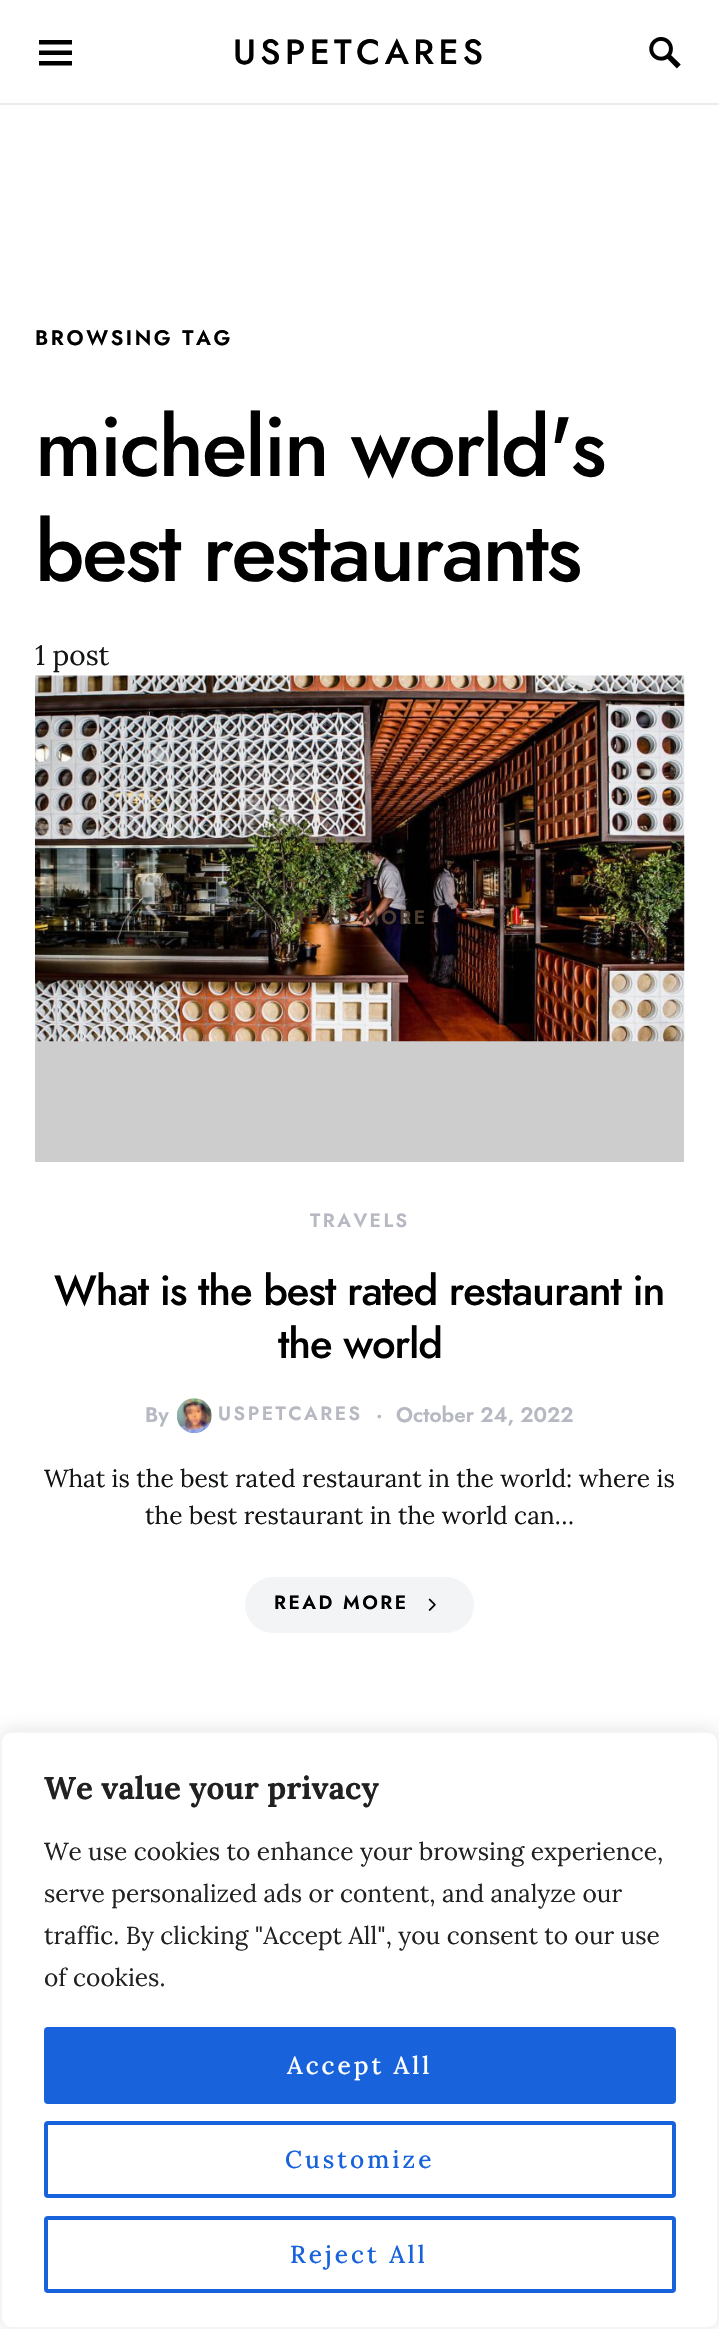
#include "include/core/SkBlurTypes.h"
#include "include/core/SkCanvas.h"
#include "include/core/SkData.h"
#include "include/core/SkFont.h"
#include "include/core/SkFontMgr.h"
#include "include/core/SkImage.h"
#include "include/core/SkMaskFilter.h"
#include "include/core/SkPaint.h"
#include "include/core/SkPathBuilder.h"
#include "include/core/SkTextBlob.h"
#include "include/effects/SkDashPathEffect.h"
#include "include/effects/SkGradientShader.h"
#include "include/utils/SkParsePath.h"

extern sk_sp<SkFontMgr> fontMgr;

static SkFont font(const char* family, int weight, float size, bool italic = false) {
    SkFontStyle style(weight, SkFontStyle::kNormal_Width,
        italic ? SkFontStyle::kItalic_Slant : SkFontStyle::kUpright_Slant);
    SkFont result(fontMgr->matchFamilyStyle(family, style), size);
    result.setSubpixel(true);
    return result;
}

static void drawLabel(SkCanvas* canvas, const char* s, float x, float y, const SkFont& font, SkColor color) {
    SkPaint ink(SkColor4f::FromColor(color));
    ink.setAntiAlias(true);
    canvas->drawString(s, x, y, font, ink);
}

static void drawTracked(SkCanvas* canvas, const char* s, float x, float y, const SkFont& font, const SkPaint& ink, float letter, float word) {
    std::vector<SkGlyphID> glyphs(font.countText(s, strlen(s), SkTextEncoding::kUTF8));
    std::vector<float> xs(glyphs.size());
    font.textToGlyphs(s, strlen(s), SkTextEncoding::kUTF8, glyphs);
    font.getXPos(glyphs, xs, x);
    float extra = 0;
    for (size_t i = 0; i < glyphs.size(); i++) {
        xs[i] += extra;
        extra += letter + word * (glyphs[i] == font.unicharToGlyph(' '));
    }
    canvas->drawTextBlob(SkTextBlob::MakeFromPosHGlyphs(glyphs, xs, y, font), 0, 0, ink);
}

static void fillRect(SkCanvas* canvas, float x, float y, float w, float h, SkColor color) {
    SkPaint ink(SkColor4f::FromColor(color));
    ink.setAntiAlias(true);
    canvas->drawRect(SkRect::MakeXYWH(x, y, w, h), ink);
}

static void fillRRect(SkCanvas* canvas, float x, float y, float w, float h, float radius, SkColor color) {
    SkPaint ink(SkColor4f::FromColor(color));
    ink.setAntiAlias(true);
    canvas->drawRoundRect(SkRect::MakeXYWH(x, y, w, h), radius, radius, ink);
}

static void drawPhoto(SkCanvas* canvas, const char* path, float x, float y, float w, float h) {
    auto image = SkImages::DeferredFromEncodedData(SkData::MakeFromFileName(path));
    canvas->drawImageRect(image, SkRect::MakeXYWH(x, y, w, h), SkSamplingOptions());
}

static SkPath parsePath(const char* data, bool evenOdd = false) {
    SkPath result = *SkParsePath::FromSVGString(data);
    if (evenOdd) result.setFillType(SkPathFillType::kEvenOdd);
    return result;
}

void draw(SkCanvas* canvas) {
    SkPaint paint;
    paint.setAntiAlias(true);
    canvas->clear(0xFFFFFFFF);
    fillRect(canvas, 0, 103, 719, 2, 0xFFE9ECEF);
    paint.setColor(0xFF000000);
    canvas->drawPath(parsePath("M39 40H72V44.5H39ZM39 50.5H72V55H39ZM39 61H72V65.5H39Z"), paint);
    SkFont font1 = font("Jost", 500, 35);
    drawTracked(canvas, "USPETCARES", 233, 64, font1, paint, 4.4f, 0);
    drawPhoto(canvas, "assets/img1.png", 649, 37, 32, 32);
    SkFont font2 = font("Jost", 600, 21);
    drawTracked(canvas, "BROWSING TAG", 35, 345, font2, paint, 2.6f, 0);
    SkFont font3 = font("Jost", 500, 84);
    drawTracked(canvas, "michelin world's", 35, 476, font3, paint, -2.1f, 0);
    drawTracked(canvas, "best restaurants", 35, 581, font3, paint, -2.1f, 0);
    SkFont font4 = font("Lora", 400, 28);
    drawLabel(canvas, "1 post", 35, 665, font4, 0xFF121416);
    fillRect(canvas, 35, 1041, 649, 121, 0xFFCDCDCD);
    drawPhoto(canvas, "assets/img2.png", 35, 675, 650, 367);
    SkFont font5 = font("Jost", 600, 19.25f);
    paint.setColor(0xFF4E3D2F);
    drawTracked(canvas, "READ MORE", 293, 924, font5, paint, 2.5f, 0);
    paint.setColor(0xFFB7B9C2);
    drawTracked(canvas, "TRAVELS", 310, 1227, font5, paint, 2.5f, 0);
    SkFont font6 = font("Jost", 500, 42);
    paint.setColor(0xFF000000);
    drawTracked(canvas, "What is the best rated restaurant in", 54, 1305, font6, paint, -1.05f, 0);
    drawTracked(canvas, "the world", 278, 1358, font6, paint, -1.05f, 0);
    drawLabel(canvas, "By", 145, 1422, font2, 0xFFB7B9C2);
    drawPhoto(canvas, "assets/img3.png", 176, 1398, 36, 36);
    paint.setColor(0xFFB7B9C2);
    drawTracked(canvas, "USPETCARES", 218, 1420, font5, paint, 2.5f, 0);
    drawLabel(canvas, "·", 376, 1422, font2, 0xFFB7B9C2);
    drawLabel(canvas, "October 24, 2022", 396, 1422, font2, 0xFFB7B9C2);
    SkFont font7 = font("Lora", 400, 24.5f);
    drawLabel(canvas, "What is the best rated restaurant in the world: where is", 44, 1487, font7, 0xFF121416);
    drawLabel(canvas, "the best restaurant in the world can…", 145, 1524, font7, 0xFF121416);
    fillRRect(canvas, 245, 1577, 229, 56, 28, 0xFFF2F4F6);
    paint.setColor(0xFF000000);
    drawTracked(canvas, "READ MORE", 274, 1609, font5, paint, 2.5f, 0);
    drawPhoto(canvas, "assets/img4.png", 428, 1598, 8, 13);
    paint.setColor(0x4DACABAB);
    paint.setMaskFilter(SkMaskFilter::MakeBlur(kNormal_SkBlurStyle, 9));
    canvas->drawRoundRect(SkRect::MakeXYWH(0, 1729, 719, 599), 11, 11, paint);
    paint.setMaskFilter(nullptr);
    paint.setColor(0xFFFFFFFF);
    canvas->drawRoundRect(SkRect::MakeXYWH(1, 1732, 717, 596), 10, 10, paint);
    paint.setStroke(true);
    paint.setStrokeWidth(2);
    paint.setColor(0xFFF4F4F4);
    canvas->drawRoundRect(SkRect::MakeXYWH(1, 1732, 717, 596), 10, 10, paint);
    SkFont font8 = font("Lora", 700, 31.5f);
    drawLabel(canvas, "We value your privacy", 44, 1799, font8, 0xFF212121);
    drawLabel(canvas, "We use cookies to enhance your browsing experience,", 44, 1860, font7, 0xFF212121);
    drawLabel(canvas, "serve personalized ads or content, and analyze our", 44, 1902, font7, 0xFF212121);
    drawLabel(canvas, "traffic. By clicking \"Accept All\", you consent to our use", 44, 1944, font7, 0xFF212121);
    drawLabel(canvas, "of cookies.", 44, 1986, font7, 0xFF212121);
    paint.setStroke(false);
    paint.setColor(0xFF1863DC);
    canvas->drawRoundRect(SkRect::MakeXYWH(46, 2029, 628, 73), 2, 2, paint);
    paint.setStroke(true);
    paint.setStrokeWidth(4);
    canvas->drawRoundRect(SkRect::MakeXYWH(46, 2029, 628, 73), 2, 2, paint);
    SkFont font9 = font("Lora", 500, 24.5f);
    paint.setStroke(false);
    paint.setColor(0xFFFFFFFF);
    drawTracked(canvas, "Accept All", 287, 2074, font9, paint, 3, 0);
    paint.setStroke(true);
    paint.setColor(0xFF1863DC);
    canvas->drawRoundRect(SkRect::MakeXYWH(46, 2123, 628, 73), 2, 2, paint);
    paint.setStroke(false);
    drawTracked(canvas, "Customize", 285, 2168, font9, paint, 3, 0);
    paint.setStroke(true);
    canvas->drawRoundRect(SkRect::MakeXYWH(46, 2218, 628, 73), 2, 2, paint);
    paint.setStroke(false);
    drawTracked(canvas, "Reject All", 290, 2263, font9, paint, 3, 0);
}
